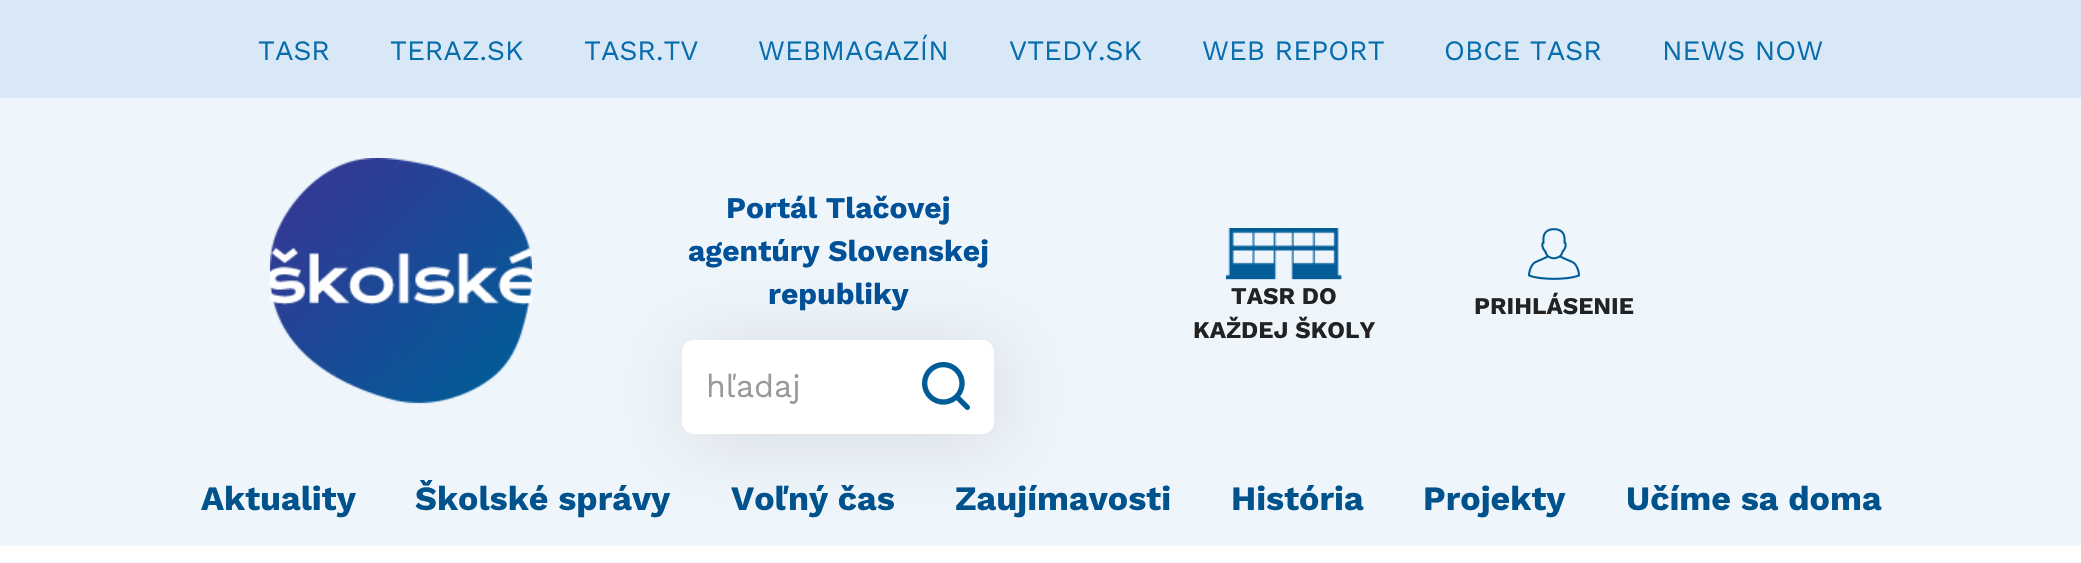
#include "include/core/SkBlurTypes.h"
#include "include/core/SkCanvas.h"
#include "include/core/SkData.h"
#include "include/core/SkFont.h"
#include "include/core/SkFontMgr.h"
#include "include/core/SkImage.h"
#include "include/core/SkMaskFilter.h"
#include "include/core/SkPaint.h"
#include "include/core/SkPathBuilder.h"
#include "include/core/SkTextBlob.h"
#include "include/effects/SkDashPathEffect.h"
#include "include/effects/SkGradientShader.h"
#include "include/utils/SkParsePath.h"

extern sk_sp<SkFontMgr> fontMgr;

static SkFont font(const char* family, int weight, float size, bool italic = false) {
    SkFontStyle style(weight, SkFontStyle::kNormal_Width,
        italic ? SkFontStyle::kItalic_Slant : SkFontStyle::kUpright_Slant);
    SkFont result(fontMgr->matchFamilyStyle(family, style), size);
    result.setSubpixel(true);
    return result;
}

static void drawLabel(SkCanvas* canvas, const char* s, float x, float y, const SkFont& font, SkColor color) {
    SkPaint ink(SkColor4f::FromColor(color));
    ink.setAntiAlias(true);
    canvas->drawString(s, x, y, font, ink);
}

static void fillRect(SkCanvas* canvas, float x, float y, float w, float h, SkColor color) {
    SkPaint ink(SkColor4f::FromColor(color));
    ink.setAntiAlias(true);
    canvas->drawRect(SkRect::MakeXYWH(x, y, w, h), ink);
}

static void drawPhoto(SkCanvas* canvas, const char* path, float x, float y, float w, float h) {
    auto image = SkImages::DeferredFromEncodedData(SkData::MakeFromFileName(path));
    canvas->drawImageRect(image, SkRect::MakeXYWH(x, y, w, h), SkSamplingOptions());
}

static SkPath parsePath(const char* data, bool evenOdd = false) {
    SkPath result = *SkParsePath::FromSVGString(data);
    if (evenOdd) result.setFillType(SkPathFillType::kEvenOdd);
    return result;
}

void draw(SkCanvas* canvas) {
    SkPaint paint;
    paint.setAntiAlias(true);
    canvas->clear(0xFFFFFFFF);
    fillRect(canvas, 0, 98, 2081, 448, 0xFFEEF5FB);
    fillRect(canvas, 0, 0, 2081, 98, 0xFFD9E8F6);
    SkFont font1 = font("Work Sans", 400, 28);
    drawLabel(canvas, "TASR", 258, 60, font1, 0xFF086DAC);
    drawLabel(canvas, "TERAZ.SK", 390, 60, font1, 0xFF086DAC);
    drawLabel(canvas, "TASR.TV", 584, 60, font1, 0xFF086DAC);
    drawLabel(canvas, "WEBMAGAZÍN", 758, 60, font1, 0xFF086DAC);
    drawLabel(canvas, "VTEDY.SK", 1009, 60, font1, 0xFF086DAC);
    drawLabel(canvas, "WEB REPORT", 1202, 60, font1, 0xFF086DAC);
    drawLabel(canvas, "OBCE TASR", 1444, 60, font1, 0xFF086DAC);
    drawLabel(canvas, "NEWS NOW", 1662, 60, font1, 0xFF086DAC);
    drawPhoto(canvas, "assets/img1.png", 270, 158, 262, 246);
    SkFont font2 = font("Work Sans", 700, 30);
    drawLabel(canvas, "Portál Tlačovej", 726, 218, font2, 0xFF015198);
    drawLabel(canvas, "agentúry Slovenskej", 688, 261, font2, 0xFF015198);
    drawLabel(canvas, "republiky", 768, 304, font2, 0xFF015198);
    paint.setColor(0x1A000000);
    paint.setMaskFilter(SkMaskFilter::MakeBlur(kNormal_SkBlurStyle, 36));
    canvas->drawRoundRect(SkRect::MakeXYWH(688, 346, 312, 94), 12, 12, paint);
    paint.setMaskFilter(nullptr);
    paint.setColor(0xFFFFFFFF);
    canvas->drawPath(parsePath("M694 340H898V434H694C687.5 434 682 428.5 682 422V352C682 345.5 687.5 340 694 340Z"), paint);
    SkFont font3 = font("Work Sans", 400, 32);
    drawLabel(canvas, "hľadaj", 706, 397, font3, 0xFF999999);
    canvas->drawPath(parsePath("M898 340H982C988.5 340 994 345.5 994 352V422C994 428.5 988.5 434 982 434H898Z"), paint);
    canvas->drawPath(parsePath("M898 342H982C988.5 342 994 347.5 994 354V422C994 428.5 988.5 434 982 434H898Z"), paint);
    drawPhoto(canvas, "assets/img2.png", 922, 362, 48, 48);
    drawPhoto(canvas, "assets/img3.png", 1226, 228, 116, 52);
    SkFont font4 = font("Work Sans", 700, 24);
    drawLabel(canvas, "TASR DO", 1231, 304, font4, 0xFF222222);
    drawLabel(canvas, "KAŽDEJ ŠKOLY", 1193, 338, font4, 0xFF222222);
    drawPhoto(canvas, "assets/img4.png", 1528, 228, 52, 52);
    drawLabel(canvas, "PRIHLÁSENIE", 1474, 314, font4, 0xFF222222);
    SkFont font5 = font("Work Sans", 700, 34);
    drawLabel(canvas, "Aktuality", 201, 510, font5, 0xFF00528C);
    drawLabel(canvas, "Školské správy", 415, 510, font5, 0xFF00528C);
    drawLabel(canvas, "Voľný čas", 731, 510, font5, 0xFF00528C);
    drawLabel(canvas, "Zaujímavosti", 955, 510, font5, 0xFF00528C);
    drawLabel(canvas, "História", 1231, 510, font5, 0xFF00528C);
    drawLabel(canvas, "Projekty", 1423, 510, font5, 0xFF00528C);
    drawLabel(canvas, "Učíme sa doma", 1626, 510, font5, 0xFF00528C);
}
